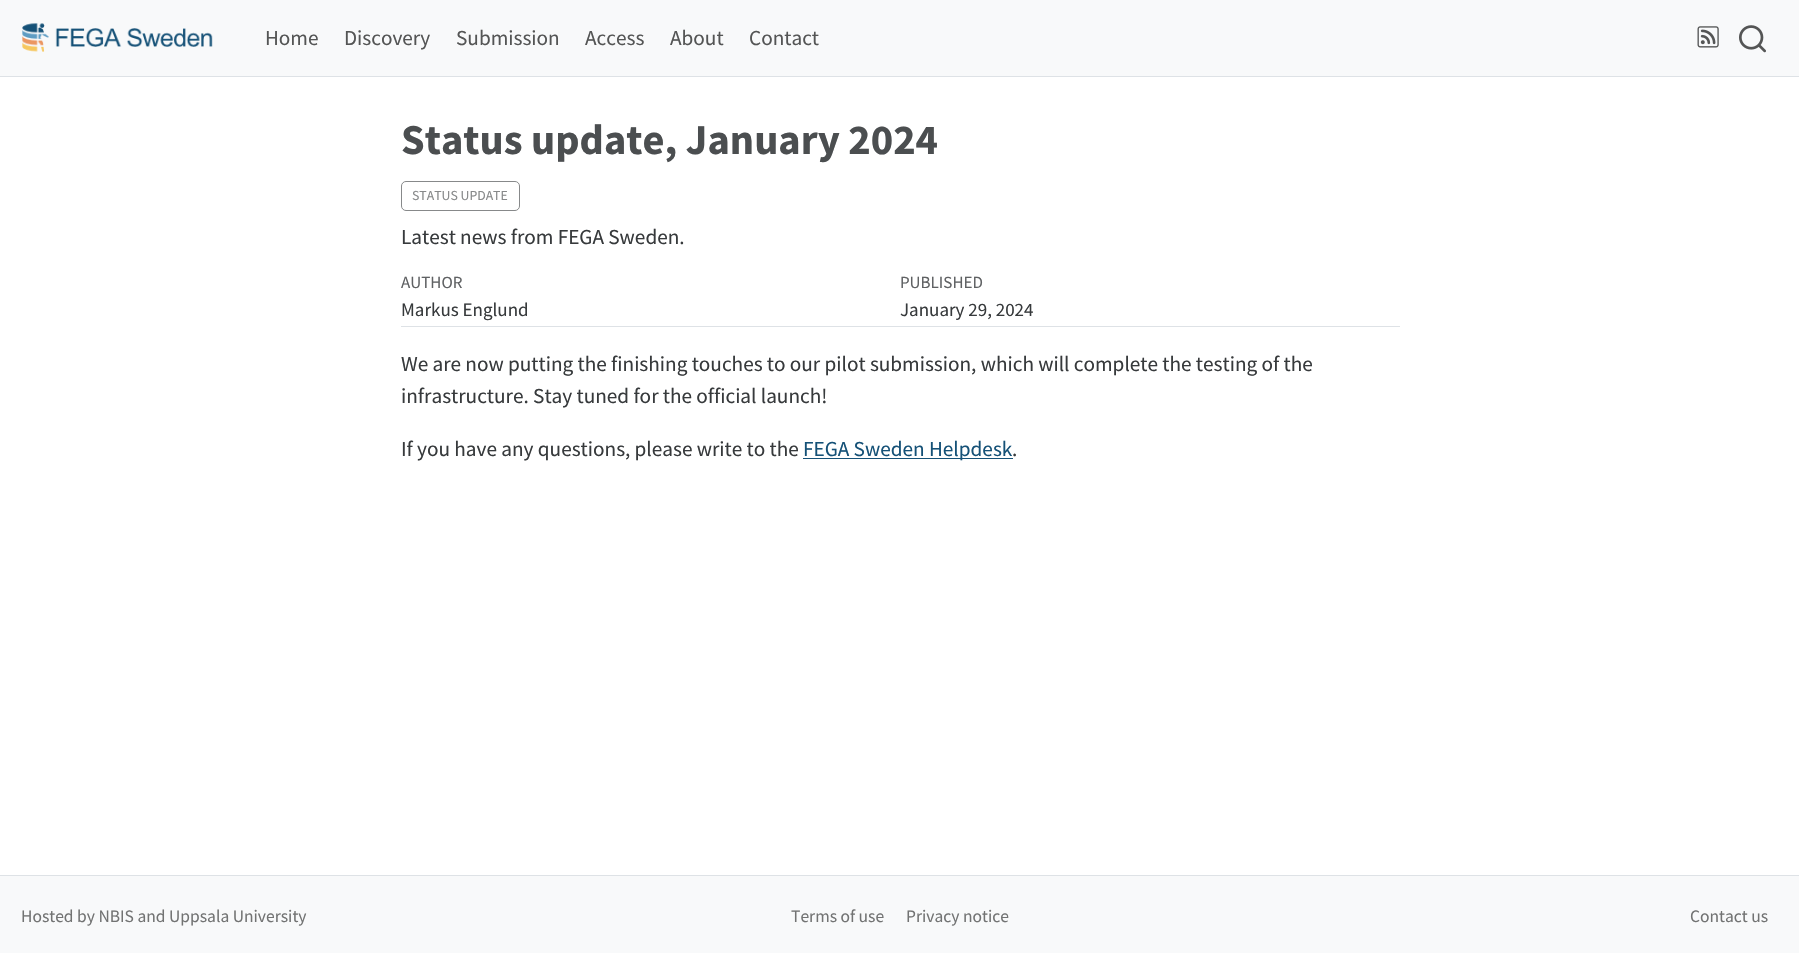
#include "include/core/SkBlurTypes.h"
#include "include/core/SkCanvas.h"
#include "include/core/SkData.h"
#include "include/core/SkFont.h"
#include "include/core/SkFontMgr.h"
#include "include/core/SkImage.h"
#include "include/core/SkMaskFilter.h"
#include "include/core/SkPaint.h"
#include "include/core/SkPathBuilder.h"
#include "include/core/SkTextBlob.h"
#include "include/effects/SkDashPathEffect.h"
#include "include/effects/SkGradientShader.h"
#include "include/utils/SkParsePath.h"

extern sk_sp<SkFontMgr> fontMgr;

static SkFont font(const char* family, int weight, float size, bool italic = false) {
    SkFontStyle style(weight, SkFontStyle::kNormal_Width,
        italic ? SkFontStyle::kItalic_Slant : SkFontStyle::kUpright_Slant);
    SkFont result(fontMgr->matchFamilyStyle(family, style), size);
    result.setSubpixel(true);
    return result;
}

static void drawLabel(SkCanvas* canvas, const char* s, float x, float y, const SkFont& font, SkColor color) {
    SkPaint ink(SkColor4f::FromColor(color));
    ink.setAntiAlias(true);
    canvas->drawString(s, x, y, font, ink);
}

static void fillRect(SkCanvas* canvas, float x, float y, float w, float h, SkColor color) {
    SkPaint ink(SkColor4f::FromColor(color));
    ink.setAntiAlias(true);
    canvas->drawRect(SkRect::MakeXYWH(x, y, w, h), ink);
}

static void drawPhoto(SkCanvas* canvas, const char* path, float x, float y, float w, float h) {
    auto image = SkImages::DeferredFromEncodedData(SkData::MakeFromFileName(path));
    canvas->drawImageRect(image, SkRect::MakeXYWH(x, y, w, h), SkSamplingOptions());
}

void draw(SkCanvas* canvas) {
    SkPaint paint;
    paint.setAntiAlias(true);
    canvas->clear(0xFFFFFFFF);
    fillRect(canvas, 0, 76, 1799, 1, 0xFFDEE2E6);
    fillRect(canvas, 0, 0, 1799, 76, 0xFFF8F9FA);
    drawPhoto(canvas, "assets/img1.png", 22, 23, 191, 29);
    SkFont font1 = font("Source Sans Pro", 400, 21.25f);
    drawLabel(canvas, "Home", 265, 45, font1, 0xFF545555);
    drawLabel(canvas, "Discovery", 344, 45, font1, 0xFF545555);
    drawLabel(canvas, "Submission", 456, 45, font1, 0xFF545555);
    drawLabel(canvas, "Access", 585, 45, font1, 0xFF545555);
    drawLabel(canvas, "About", 670, 45, font1, 0xFF545555);
    drawLabel(canvas, "Contact", 749, 45, font1, 0xFF545555);
    drawPhoto(canvas, "assets/img2.png", 1697, 26, 22, 22);
    drawPhoto(canvas, "assets/img3.png", 1739, 25, 27, 28);
    fillRect(canvas, 401, 326, 999, 1, 0xFFDEE2E6);
    SkFont font2 = font("Source Sans Pro", 700, 42.5f);
    drawLabel(canvas, "Status update, January 2024", 401, 154, font2, 0xFF4B4E50);
    paint.setStroke(true);
    paint.setStrokeWidth(1);
    paint.setColor(0xFF87898A);
    canvas->drawRoundRect(SkRect::MakeXYWH(401.5f, 181.5f, 118, 29), 4.5f, 4.5f, paint);
    SkFont font3 = font("Source Sans Pro", 400, 13.75f);
    drawLabel(canvas, "STATUS UPDATE", 412, 200, font3, 0xFF87898A);
    drawLabel(canvas, "Latest news from FEGA Sweden.", 401, 244, font1, 0xFF373A3C);
    SkFont font4 = font("Source Sans Pro", 400, 17);
    drawLabel(canvas, "AUTHOR", 401, 288, font4, 0xFF5F6163);
    SkFont font5 = font("Source Sans Pro", 400, 19);
    drawLabel(canvas, "Markus Englund", 401, 316, font5, 0xFF373A3C);
    drawLabel(canvas, "PUBLISHED", 900, 288, font4, 0xFF5F6163);
    drawLabel(canvas, "January 29, 2024", 900, 316, font5, 0xFF373A3C);
    drawLabel(canvas, "We are now putting the finishing touches to our pilot submission, which will complete the testing of the", 401, 371, font1, 0xFF373A3C);
    drawLabel(canvas, "infrastructure. Stay tuned for the official launch!", 401, 403, font1, 0xFF373A3C);
    drawLabel(canvas, "If you have any questions, please write to the", 401, 456, font1, 0xFF373A3C);
    fillRect(canvas, 803, 458, 210, 1, 0xFF155177);
    drawLabel(canvas, "FEGA Sweden Helpdesk", 803, 456, font1, 0xFF155177);
    drawLabel(canvas, ".", 1012, 456, font1, 0xFF373A3C);
    fillRect(canvas, 0, 875, 1799, 1, 0xFFDEE2E6);
    fillRect(canvas, 0, 876, 1799, 77, 0xFFF8F9FA);
    SkFont font6 = font("Source Sans Pro", 400, 17.5f);
    drawLabel(canvas, "Hosted by NBIS and Uppsala University", 21, 922, font6, 0xFF727373);
    drawLabel(canvas, "Terms of use", 791, 922, font6, 0xFF727373);
    drawLabel(canvas, "Privacy notice", 906, 922, font6, 0xFF727373);
    drawLabel(canvas, "Contact us", 1690, 922, font6, 0xFF727373);
}
